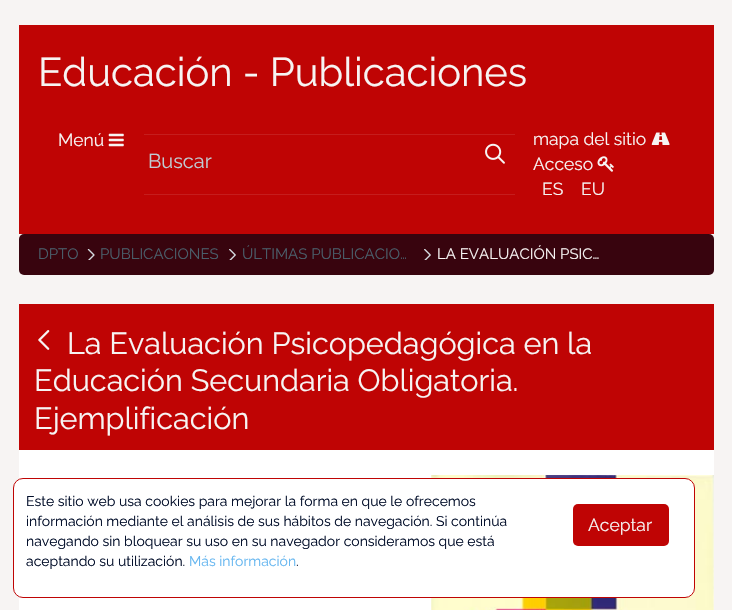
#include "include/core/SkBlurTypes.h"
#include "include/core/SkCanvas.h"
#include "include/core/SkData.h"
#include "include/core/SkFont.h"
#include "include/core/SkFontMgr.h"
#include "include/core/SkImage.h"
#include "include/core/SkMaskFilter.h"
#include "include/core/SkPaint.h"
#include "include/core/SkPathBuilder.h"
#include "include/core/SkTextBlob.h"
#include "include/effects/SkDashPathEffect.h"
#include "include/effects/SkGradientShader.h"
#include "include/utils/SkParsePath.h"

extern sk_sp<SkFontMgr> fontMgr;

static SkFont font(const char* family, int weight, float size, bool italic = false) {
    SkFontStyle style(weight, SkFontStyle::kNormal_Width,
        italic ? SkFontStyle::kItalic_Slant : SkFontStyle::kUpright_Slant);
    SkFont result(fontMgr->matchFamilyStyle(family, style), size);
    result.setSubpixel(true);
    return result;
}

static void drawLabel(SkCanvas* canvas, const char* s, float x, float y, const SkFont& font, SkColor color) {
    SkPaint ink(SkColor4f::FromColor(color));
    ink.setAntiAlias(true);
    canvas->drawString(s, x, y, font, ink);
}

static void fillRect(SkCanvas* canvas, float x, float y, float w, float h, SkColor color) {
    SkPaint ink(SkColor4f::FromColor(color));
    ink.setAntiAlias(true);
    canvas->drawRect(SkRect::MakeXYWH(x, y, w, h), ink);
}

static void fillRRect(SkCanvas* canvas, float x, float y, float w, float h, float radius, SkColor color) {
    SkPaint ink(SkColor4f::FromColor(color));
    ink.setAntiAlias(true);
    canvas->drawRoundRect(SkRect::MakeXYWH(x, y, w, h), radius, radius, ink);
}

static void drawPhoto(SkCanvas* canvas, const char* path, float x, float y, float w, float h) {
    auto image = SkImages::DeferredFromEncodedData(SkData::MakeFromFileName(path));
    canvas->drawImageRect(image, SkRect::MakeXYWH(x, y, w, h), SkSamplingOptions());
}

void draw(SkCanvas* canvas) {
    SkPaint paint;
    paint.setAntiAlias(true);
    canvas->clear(0xFFF7F4F3);
    fillRect(canvas, 19, 25, 695, 209, 0xFFBF0404);
    SkFont font1 = font("Raleway", 100, 40);
    drawLabel(canvas, "Educación - Publicaciones", 38, 86, font1, 0xFFF7F4F3);
    SkFont font2 = font("Raleway", 100, 17.5f);
    drawLabel(canvas, "Menú", 58, 146, font2, 0xFFF7F4F3);
    drawPhoto(canvas, "assets/img1.png", 108, 133, 16, 14);
    drawLabel(canvas, "mapa del sitio", 533, 145, font2, 0xFFF7F4F3);
    drawPhoto(canvas, "assets/img2.png", 651, 132, 19, 13);
    fillRect(canvas, 144, 194, 371, 1, 0xFFC51D1D);
    fillRect(canvas, 144, 134, 371, 1, 0xFFC51D1D);
    SkFont font3 = font("Raleway", 100, 20);
    drawLabel(canvas, "Buscar", 148, 168, font3, 0xFFC0CCD3);
    drawPhoto(canvas, "assets/img3.png", 485, 143, 20, 21);
    drawLabel(canvas, "Acceso", 533, 170, font2, 0xFFF7F4F3);
    drawPhoto(canvas, "assets/img4.png", 597, 156, 17, 16);
    drawLabel(canvas, "ES", 542, 195, font2, 0xFFF7F4F3);
    drawLabel(canvas, "EU", 581, 195, font2, 0xFFF7F4F3);
    fillRRect(canvas, 19, 234, 695, 41, 5, 0xFF38040E);
    SkFont font4 = font("Raleway", 100, 15);
    drawLabel(canvas, "DPTO", 38, 259, font4, 0xFF4A5E6A);
    drawPhoto(canvas, "assets/img5.png", 87, 249, 8, 11);
    drawLabel(canvas, "PUBLICACIONES", 100, 259, font4, 0xFF4A5E6A);
    drawPhoto(canvas, "assets/img6.png", 229, 249, 7, 11);
    drawLabel(canvas, "ÚLTIMAS PUBLICACIO…", 242, 259, font4, 0xFF4A5E6A);
    drawPhoto(canvas, "assets/img6.png", 424, 249, 7, 11);
    drawLabel(canvas, "LA EVALUACIÓN PSIC…", 437, 259, font4, 0xFFF7F4F3);
    fillRect(canvas, 19, 450, 695, 160, 0xFFFFFFFF);
    fillRect(canvas, 19, 304, 695, 146, 0xFFBF0404);
    drawPhoto(canvas, "assets/img7.png", 38, 330, 12, 20);
    SkFont font5 = font("Raleway", 100, 30.6f);
    drawLabel(canvas, "La Evaluación Psicopedagógica en la", 67, 354, font5, 0xFFF7F4F3);
    drawLabel(canvas, "Educación Secundaria Obligatoria.", 34, 391, font5, 0xFFF7F4F3);
    drawLabel(canvas, "Ejemplificación", 34, 429, font5, 0xFFF7F4F3);
    drawPhoto(canvas, "assets/img8.png", 431, 475, 283, 135);
    paint.setColor(0xFFFFFFFF);
    canvas->drawRoundRect(SkRect::MakeXYWH(13.5f, 478.5f, 681, 119), 9.5f, 9.5f, paint);
    paint.setStroke(true);
    paint.setStrokeWidth(1);
    paint.setColor(0xFFBF0404);
    canvas->drawRoundRect(SkRect::MakeXYWH(13.5f, 478.5f, 681, 119), 9.5f, 9.5f, paint);
    SkFont font6 = font("Raleway", 100, 14);
    drawLabel(canvas, "Este sitio web usa cookies para mejorar la forma en que le ofrecemos", 26, 506, font6, 0xFF000C28);
    drawLabel(canvas, "información mediante el análisis de sus hábitos de navegación. Si continúa", 26, 526, font6, 0xFF000C28);
    drawLabel(canvas, "navegando sin bloquear su uso en su navegador consideramos que está", 26, 546, font6, 0xFF000C28);
    drawLabel(canvas, "aceptando su utilización.", 26, 566, font6, 0xFF000C28);
    drawLabel(canvas, "Más información", 189, 566, font6, 0xFF65B6F0);
    drawLabel(canvas, ".", 296, 566, font6, 0xFF000C28);
    fillRRect(canvas, 573, 504, 96, 42, 5, 0xFFBF0404);
    drawLabel(canvas, "Aceptar", 588, 531, font2, 0xFFF7F4F3);
}
